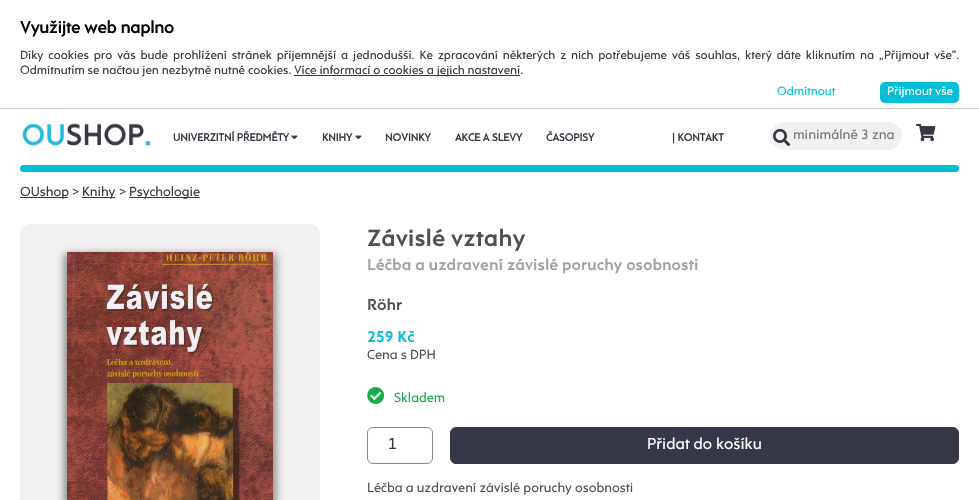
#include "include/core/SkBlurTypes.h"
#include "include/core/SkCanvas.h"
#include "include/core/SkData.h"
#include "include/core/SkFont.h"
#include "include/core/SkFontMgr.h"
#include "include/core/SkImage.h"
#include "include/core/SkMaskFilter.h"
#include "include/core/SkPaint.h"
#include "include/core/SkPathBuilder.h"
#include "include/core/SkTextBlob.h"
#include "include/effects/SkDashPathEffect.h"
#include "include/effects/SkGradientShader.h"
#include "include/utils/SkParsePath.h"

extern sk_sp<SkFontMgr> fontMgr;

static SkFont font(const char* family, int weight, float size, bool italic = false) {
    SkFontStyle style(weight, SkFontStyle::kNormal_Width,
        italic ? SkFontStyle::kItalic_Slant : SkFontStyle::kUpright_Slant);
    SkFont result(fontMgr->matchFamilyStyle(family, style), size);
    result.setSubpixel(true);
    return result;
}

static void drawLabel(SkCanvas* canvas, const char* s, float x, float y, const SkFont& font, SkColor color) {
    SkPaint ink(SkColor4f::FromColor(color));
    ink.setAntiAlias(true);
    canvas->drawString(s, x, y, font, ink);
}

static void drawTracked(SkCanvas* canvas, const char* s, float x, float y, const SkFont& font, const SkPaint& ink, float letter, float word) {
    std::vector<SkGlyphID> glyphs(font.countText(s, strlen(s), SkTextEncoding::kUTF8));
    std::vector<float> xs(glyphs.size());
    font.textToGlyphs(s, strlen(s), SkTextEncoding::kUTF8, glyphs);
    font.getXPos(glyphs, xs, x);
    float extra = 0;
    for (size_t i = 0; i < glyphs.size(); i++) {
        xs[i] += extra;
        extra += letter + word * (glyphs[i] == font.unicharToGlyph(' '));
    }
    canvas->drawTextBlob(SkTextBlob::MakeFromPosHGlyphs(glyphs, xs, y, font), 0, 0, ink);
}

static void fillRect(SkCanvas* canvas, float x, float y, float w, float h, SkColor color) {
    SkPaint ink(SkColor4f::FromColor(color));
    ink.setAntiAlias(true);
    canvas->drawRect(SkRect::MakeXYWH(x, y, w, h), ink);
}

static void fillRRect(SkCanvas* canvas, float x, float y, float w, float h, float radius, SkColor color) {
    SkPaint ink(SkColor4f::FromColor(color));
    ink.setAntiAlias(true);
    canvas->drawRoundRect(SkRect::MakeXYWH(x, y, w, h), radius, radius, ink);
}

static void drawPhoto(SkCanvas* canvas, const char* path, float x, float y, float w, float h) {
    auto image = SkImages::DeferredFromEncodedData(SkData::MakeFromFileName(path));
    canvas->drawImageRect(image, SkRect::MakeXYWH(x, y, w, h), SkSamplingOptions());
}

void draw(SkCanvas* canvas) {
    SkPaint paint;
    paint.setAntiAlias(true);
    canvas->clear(0xFFFFFFFF);
    fillRect(canvas, 0, 108, 979, 1, 0xFFCCCCCC);
    SkFont font1 = font("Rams", 700, 17);
    drawLabel(canvas, "Využijte web naplno", 20, 33, font1, 0xFF000000);
    SkFont font2 = font("Rams", 400, 12.15f);
    paint.setColor(0xFF373841);
    drawTracked(canvas, "Díky cookies pro vás bude prohlížení stránek příjemnější a jednodušší. Ke zpracování některých z nich potřebujeme váš souhlas, který dáte kliknutím na „Přijmout vše“.", 20, 59, font2, paint, 0, 2);
    drawLabel(canvas, "Odmítnutím se načtou jen nezbytně nutné cookies.", 20, 74, font2, 0xFF373841);
    fillRect(canvas, 294, 75, 226, 1, 0xFF373841);
    drawLabel(canvas, "Více informací o cookies a jejich nastavení.", 294, 74, font2, 0xFF373841);
    drawLabel(canvas, "Odmítnout", 777, 95, font2, 0xFF02BED7);
    fillRRect(canvas, 880, 82, 79, 21, 5, 0xFF02BED7);
    drawLabel(canvas, "Přijmout vše", 887, 95, font2, 0xFFFFFFFF);
    drawPhoto(canvas, "assets/img1.png", 22, 123, 129, 23);
    SkFont font3 = font("Rams", 700, 10.75f);
    drawLabel(canvas, "UNIVERZITNÍ PŘEDMĚTY", 173, 141, font3, 0xFF373841);
    drawPhoto(canvas, "assets/img2.png", 291, 135, 7, 5);
    drawLabel(canvas, "KNIHY", 322, 141, font3, 0xFF373841);
    drawPhoto(canvas, "assets/img2.png", 355, 135, 7, 5);
    drawLabel(canvas, "NOVINKY", 385, 141, font3, 0xFF373841);
    drawLabel(canvas, "AKCE A SLEVY", 455, 141, font3, 0xFF373841);
    drawLabel(canvas, "ČASOPISY", 546, 141, font3, 0xFF373841);
    drawLabel(canvas, "| KONTAKT", 672, 141, font3, 0xFF373841);
    fillRRect(canvas, 771, 122, 131, 28, 14, 0xFFF1F1F1);
    drawPhoto(canvas, "assets/img3.png", 773, 128, 18, 19);
    SkFont font4 = font("Rams", 400, 13.75f);
    drawLabel(canvas, "minimálně 3 zna", 793, 139, font4, 0xFF757575);
    drawPhoto(canvas, "assets/img4.png", 916, 123, 20, 19);
    fillRRect(canvas, 20, 165, 939, 7, 3.5f, 0xFF02BED7);
    fillRect(canvas, 20, 197, 48, 1, 0xFF373841);
    SkFont font5 = font("Rams", 400, 13.4f);
    drawLabel(canvas, "OUshop", 20, 196, font5, 0xFF373841);
    drawLabel(canvas, ">", 72, 196, font5, 0xFF505050);
    fillRect(canvas, 82, 197, 33, 1, 0xFF373841);
    drawLabel(canvas, "Knihy", 82, 196, font5, 0xFF373841);
    drawLabel(canvas, ">", 119, 196, font5, 0xFF505050);
    fillRect(canvas, 129, 197, 71, 1, 0xFF373841);
    drawLabel(canvas, "Psychologie", 129, 196, font5, 0xFF373841);
    fillRRect(canvas, 20, 224, 300, 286, 10, 0xFFF1F1F1);
    paint.setColor(0xFF888888);
    paint.setMaskFilter(SkMaskFilter::MakeBlur(kNormal_SkBlurStyle, 4));
    canvas->drawRect(SkRect::MakeXYWH(64, 254, 212, 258), paint);
    paint.setMaskFilter(nullptr);
    drawPhoto(canvas, "assets/img5.png", 67, 252, 206, 248);
    SkFont font6 = font("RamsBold", 400, 24);
    drawLabel(canvas, "Závislé vztahy", 367, 246, font6, 0xFF505050);
    SkFont font7 = font("RamsBold", 400, 16.05f);
    drawLabel(canvas, "Léčba a uzdravení závislé poruchy osobnosti", 367, 270, font7, 0xFFA1A1A1);
    drawLabel(canvas, "Röhr", 367, 310, font7, 0xFF505050);
    drawLabel(canvas, "259 Kč", 367, 342, font7, 0xFF02BED7);
    drawLabel(canvas, "Cena s DPH", 367, 359, font5, 0xFF505050);
    drawPhoto(canvas, "assets/img6.png", 367, 387, 18, 17);
    drawLabel(canvas, "Skladem", 394, 402, font5, 0xFF18AB4A);
    paint.setStroke(true);
    paint.setStrokeWidth(1);
    paint.setColor(0xFF898989);
    canvas->drawRoundRect(SkRect::MakeXYWH(367.5f, 427.5f, 65, 36), 5.5f, 5.5f, paint);
    SkFont font8 = font("Rams", 400, 16.05f);
    drawLabel(canvas, "1", 388, 449, font8, 0xFF373847);
    paint.setStroke(false);
    paint.setColor(0xFF373847);
    canvas->drawRoundRect(SkRect::MakeXYWH(450.5f, 427.5f, 508, 36), 5.5f, 5.5f, paint);
    paint.setStroke(true);
    canvas->drawRoundRect(SkRect::MakeXYWH(450.5f, 427.5f, 508, 36), 5.5f, 5.5f, paint);
    drawLabel(canvas, "Přidat do košíku", 647, 449, font8, 0xFFFFFFFF);
    drawLabel(canvas, "Léčba a uzdravení závislé poruchy osobnosti", 367, 492, font5, 0xFF505050);
}
